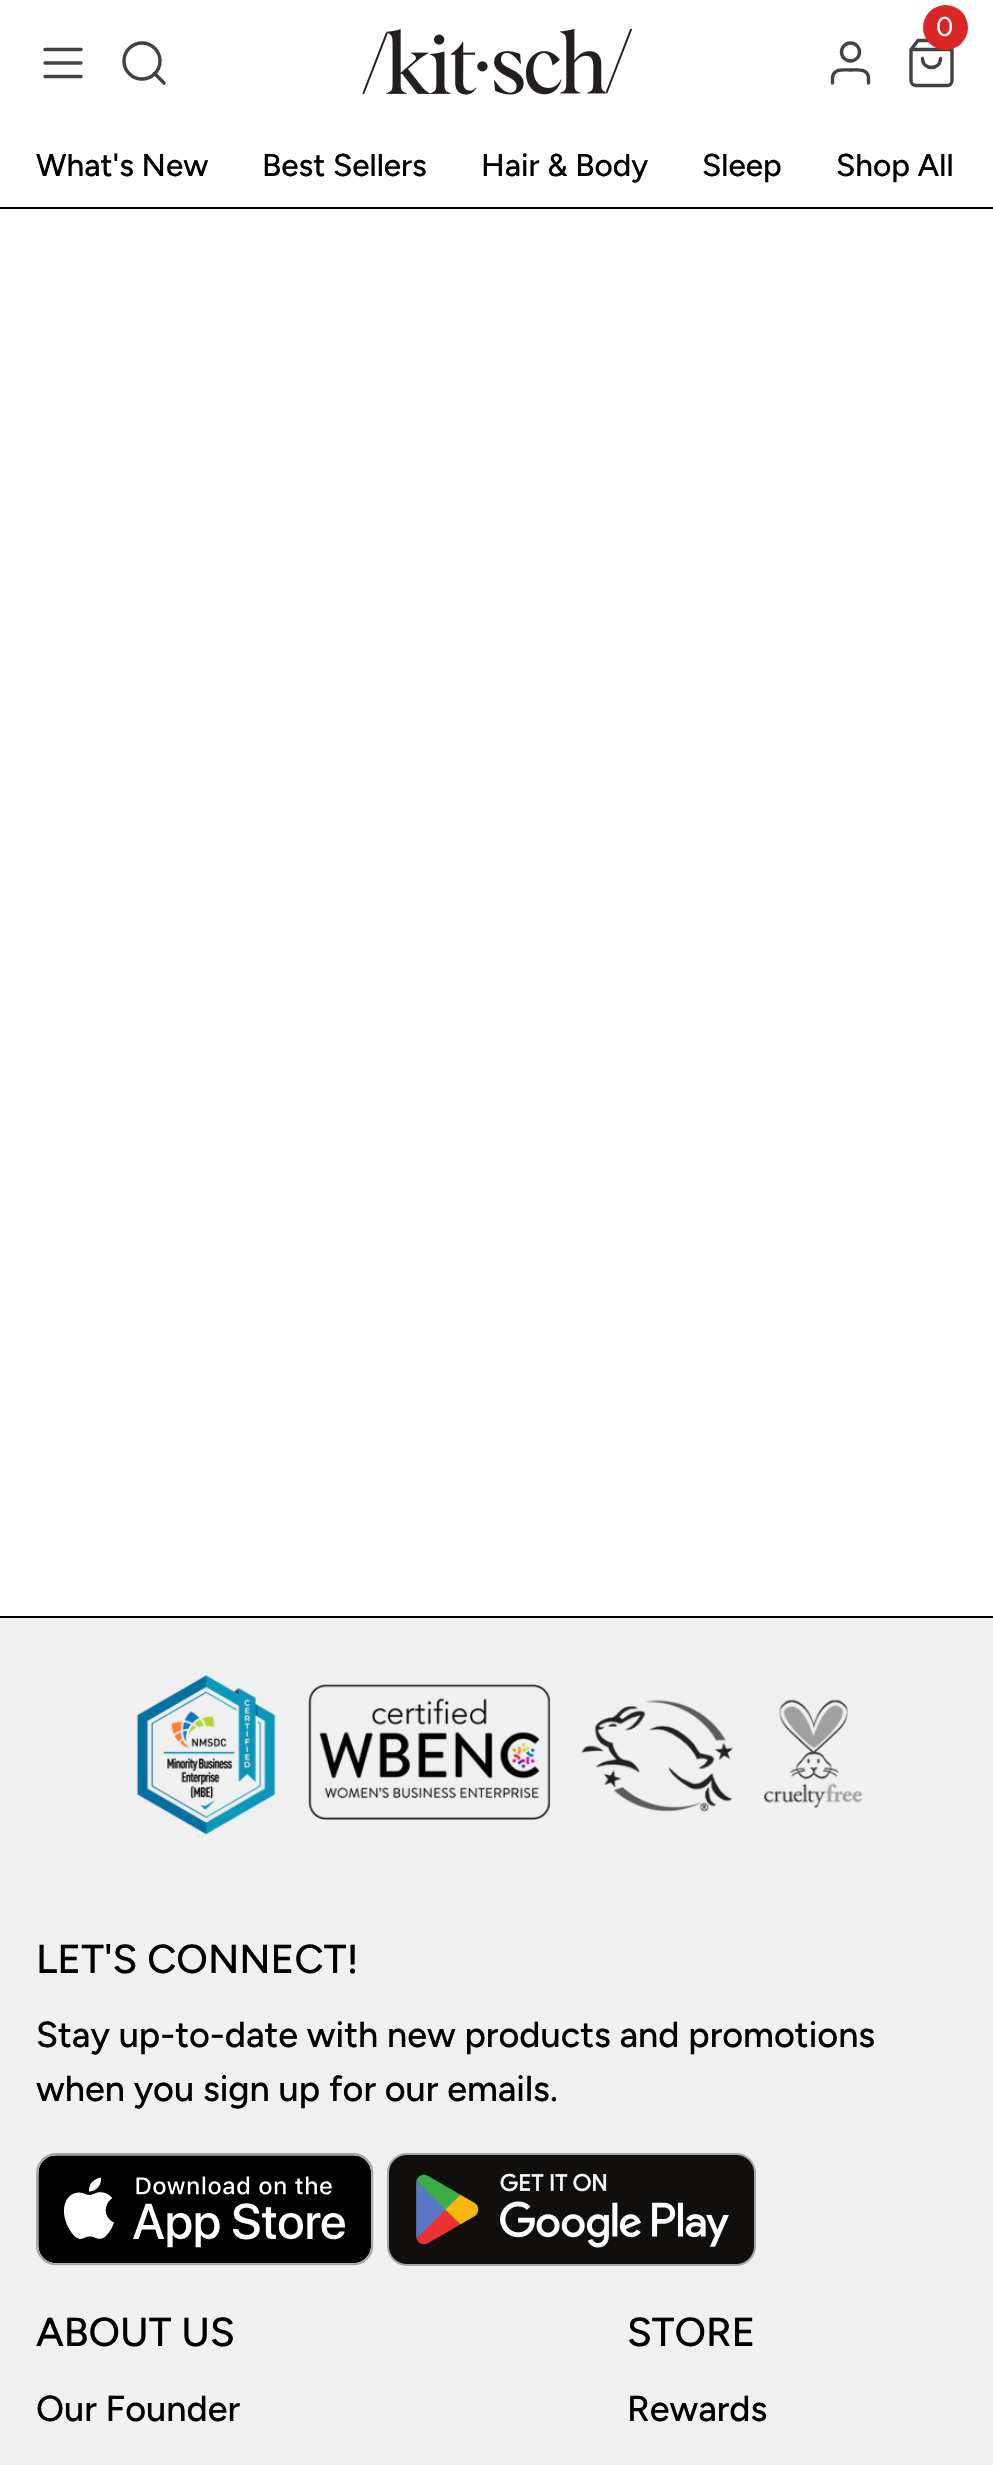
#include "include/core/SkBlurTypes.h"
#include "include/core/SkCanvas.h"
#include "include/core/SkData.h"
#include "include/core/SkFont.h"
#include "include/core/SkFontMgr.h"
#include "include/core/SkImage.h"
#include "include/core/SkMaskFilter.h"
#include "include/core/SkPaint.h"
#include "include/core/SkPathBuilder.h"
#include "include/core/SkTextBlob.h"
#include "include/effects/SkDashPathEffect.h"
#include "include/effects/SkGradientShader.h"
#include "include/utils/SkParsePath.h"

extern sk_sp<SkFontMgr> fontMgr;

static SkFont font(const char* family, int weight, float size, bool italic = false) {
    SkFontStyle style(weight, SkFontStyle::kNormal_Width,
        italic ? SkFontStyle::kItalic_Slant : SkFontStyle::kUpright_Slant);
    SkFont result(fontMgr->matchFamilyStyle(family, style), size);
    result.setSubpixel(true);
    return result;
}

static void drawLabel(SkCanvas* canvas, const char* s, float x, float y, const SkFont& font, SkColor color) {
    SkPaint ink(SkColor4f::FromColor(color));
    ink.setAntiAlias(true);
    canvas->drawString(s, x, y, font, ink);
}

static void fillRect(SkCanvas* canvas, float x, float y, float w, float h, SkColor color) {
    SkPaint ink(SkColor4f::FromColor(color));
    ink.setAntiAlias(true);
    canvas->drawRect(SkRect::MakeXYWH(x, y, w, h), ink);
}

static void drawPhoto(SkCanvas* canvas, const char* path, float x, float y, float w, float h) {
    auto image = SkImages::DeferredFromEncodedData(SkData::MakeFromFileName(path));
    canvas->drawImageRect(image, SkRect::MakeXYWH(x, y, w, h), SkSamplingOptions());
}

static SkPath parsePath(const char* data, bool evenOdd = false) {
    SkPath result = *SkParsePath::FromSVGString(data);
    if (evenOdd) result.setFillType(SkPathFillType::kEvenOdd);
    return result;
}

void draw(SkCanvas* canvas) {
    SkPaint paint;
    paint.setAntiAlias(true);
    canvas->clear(0xFFFFFFFF);
    fillRect(canvas, 0, 207, 993, 2, 0xFF000000);
    paint.setStroke(true);
    paint.setStrokeWidth(3.4f);
    paint.setStrokeCap(SkPaint::kRound_Cap);
    paint.setStrokeJoin(SkPaint::kRound_Join);
    paint.setColor(0xFF424242);
    canvas->drawPath(parsePath("M45 49.5H81M45 63H81M45 76.5H81"), paint);
    paint.setStrokeCap(SkPaint::kButt_Cap);
    paint.setStrokeJoin(SkPaint::kMiter_Join);
    canvas->drawCircle(142, 61, 18, paint);
    paint.setStrokeCap(SkPaint::kRound_Cap);
    paint.setStrokeJoin(SkPaint::kRound_Join);
    canvas->drawPath(parsePath("M164 83L154.5 73.5"), paint);
    drawPhoto(canvas, "assets/img1.png", 362, 28, 270, 67);
    canvas->drawPath(parsePath("M918 40.5L911 49.5V81C911 83.5 913.5 85.5 916 85.5H947C949.5 85.5 952 83.5 952 81V49.5L945 40.5ZM911 49.5H952M940.5 58.5C940.5 70.5 922.5 70.5 922.5 58.5"), paint);
    paint.setStroke(false);
    paint.setColor(0xFFDC2626);
    canvas->drawCircle(945.5f, 27.5f, 22.5f, paint);
    SkFont font1 = font("Figtree", 400, 27);
    drawLabel(canvas, "0", 936, 36, font1, 0xFFFFFFFF);
    paint.setStroke(true);
    paint.setColor(0xFF424242);
    canvas->drawPath(parsePath("M868.5 83V77C866.5 68 857 70 850.5 70C844 70 834.5 68 832.5 77V83"), paint);
    paint.setStrokeCap(SkPaint::kButt_Cap);
    paint.setStrokeJoin(SkPaint::kMiter_Join);
    canvas->drawCircle(850.5f, 52, 9, paint);
    SkFont font2 = font("Figtree", 500, 31.5f);
    drawLabel(canvas, "What's New", 36, 176, font2, 0xFF000000);
    drawLabel(canvas, "Best Sellers", 262, 176, font2, 0xFF000000);
    drawLabel(canvas, "Hair & Body", 481, 176, font2, 0xFF000000);
    drawLabel(canvas, "Sleep", 702, 176, font2, 0xFF000000);
    drawLabel(canvas, "Shop All", 836, 176, font2, 0xFF000000);
    fillRect(canvas, 0, 1618, 993, 847, 0xFFF0F0F0);
    fillRect(canvas, 0, 1616, 993, 2, 0xFF000000);
    drawPhoto(canvas, "assets/img2.png", 136, 1675, 727, 163);
    SkFont font3 = font("Figtree", 500, 40.5f);
    drawLabel(canvas, "LET'S CONNECT!", 36, 1973, font3, 0xFF000000);
    SkFont font4 = font("Figtree", 500, 36);
    drawLabel(canvas, "Stay up-to-date with new products and promotions", 36, 2047, font4, 0xFF000000);
    drawLabel(canvas, "when you sign up for our emails.", 36, 2101, font4, 0xFF000000);
    drawPhoto(canvas, "assets/img3.png", 36, 2153, 338, 113);
    drawPhoto(canvas, "assets/img4.png", 387, 2153, 369, 113);
    drawLabel(canvas, "ABOUT US", 36, 2346, font3, 0xFF000000);
    drawLabel(canvas, "Our Founder", 36, 2421, font4, 0xFF000000);
    drawLabel(canvas, "STORE", 627, 2346, font3, 0xFF000000);
    drawLabel(canvas, "Rewards", 627, 2421, font4, 0xFF000000);
}
